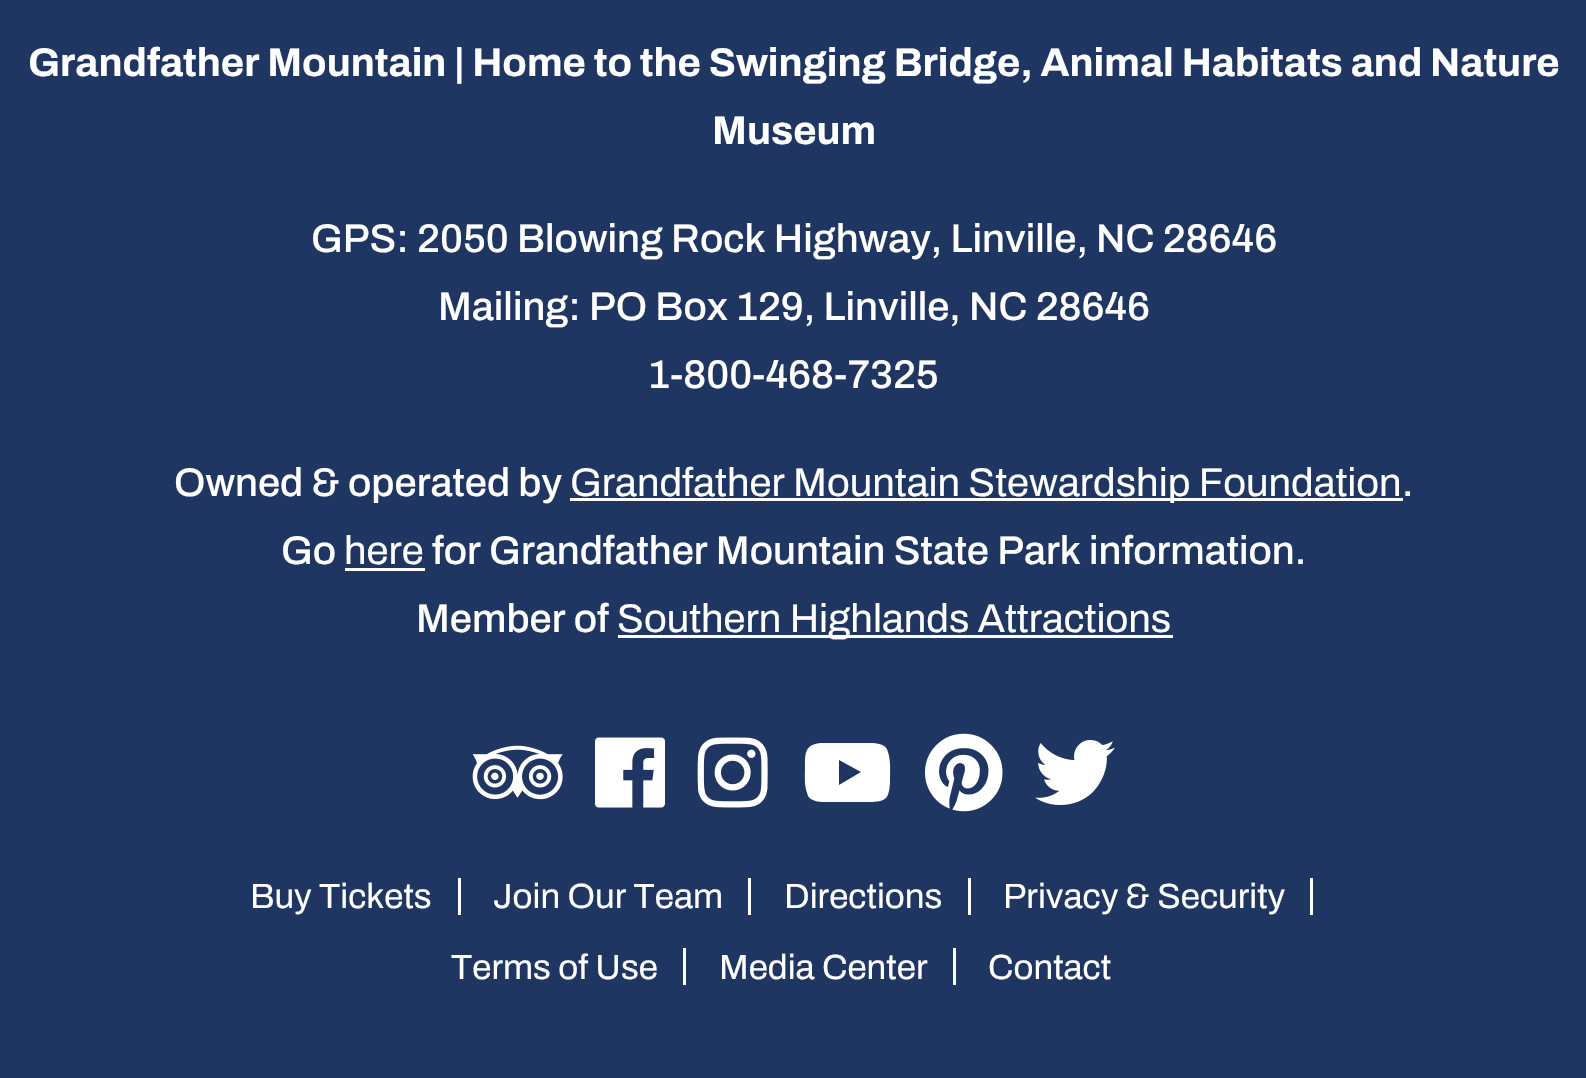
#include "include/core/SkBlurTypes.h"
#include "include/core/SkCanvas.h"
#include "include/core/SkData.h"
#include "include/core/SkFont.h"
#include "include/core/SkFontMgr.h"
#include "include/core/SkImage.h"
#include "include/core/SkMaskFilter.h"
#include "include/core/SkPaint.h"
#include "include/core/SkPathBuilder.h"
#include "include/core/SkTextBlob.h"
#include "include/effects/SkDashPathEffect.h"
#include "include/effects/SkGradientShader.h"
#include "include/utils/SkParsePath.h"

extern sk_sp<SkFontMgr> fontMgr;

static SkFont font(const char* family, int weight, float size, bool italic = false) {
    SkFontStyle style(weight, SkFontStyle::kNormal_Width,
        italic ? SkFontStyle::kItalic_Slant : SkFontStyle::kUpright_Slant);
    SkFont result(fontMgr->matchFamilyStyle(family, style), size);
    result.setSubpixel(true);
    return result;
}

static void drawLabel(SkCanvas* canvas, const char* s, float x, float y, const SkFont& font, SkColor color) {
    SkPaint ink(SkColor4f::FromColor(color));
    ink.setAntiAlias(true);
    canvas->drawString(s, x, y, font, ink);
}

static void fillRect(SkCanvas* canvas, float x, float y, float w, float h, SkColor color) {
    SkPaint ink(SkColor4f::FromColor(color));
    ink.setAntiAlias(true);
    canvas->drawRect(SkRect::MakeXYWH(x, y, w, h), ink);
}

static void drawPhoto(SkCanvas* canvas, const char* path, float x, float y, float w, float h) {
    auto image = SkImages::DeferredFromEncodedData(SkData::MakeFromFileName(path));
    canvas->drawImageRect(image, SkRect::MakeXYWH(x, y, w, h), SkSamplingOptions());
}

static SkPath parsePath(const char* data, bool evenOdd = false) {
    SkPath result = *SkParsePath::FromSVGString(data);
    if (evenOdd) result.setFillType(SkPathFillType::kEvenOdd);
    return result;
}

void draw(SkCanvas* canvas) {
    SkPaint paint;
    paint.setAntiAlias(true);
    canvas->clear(0xFF1F3662);
    SkFont font1 = font("Archivo", 700, 40);
    drawLabel(canvas, "Grandfather Mountain | Home to the Swinging Bridge, Animal Habitats and Nature", 28, 76, font1, 0xFFFFFFFF);
    drawLabel(canvas, "Museum", 712, 144, font1, 0xFFFFFFFF);
    SkFont font2 = font("Archivo", 500, 40);
    drawLabel(canvas, "GPS: 2050 Blowing Rock Highway, Linville, NC 28646", 311, 252, font2, 0xFFFFFFFF);
    drawLabel(canvas, "Mailing: PO Box 129, Linville, NC 28646", 438, 320, font2, 0xFFFFFFFF);
    drawLabel(canvas, "1-800-468-7325", 648, 388, font2, 0xFFFFFFFF);
    drawLabel(canvas, "Owned & operated by", 174, 496, font2, 0xFFFFFFFF);
    fillRect(canvas, 570, 498, 833, 3, 0xFFFFFFFF);
    SkFont font3 = font("Archivo", 400, 40);
    drawLabel(canvas, "Grandfather Mountain Stewardship Foundation", 570, 496, font3, 0xFFFFFFFF);
    drawLabel(canvas, ".", 1402, 496, font2, 0xFFFFFFFF);
    drawLabel(canvas, "Go", 281, 564, font2, 0xFFFFFFFF);
    drawLabel(canvas, "here", 344, 564, font3, 0xFFFFFFFF);
    fillRect(canvas, 345, 568, 80, 3, 0xFFFFFFFF);
    drawLabel(canvas, "for Grandfather Mountain State Park information.", 432, 564, font2, 0xFFFFFFFF);
    drawLabel(canvas, "Member of", 416, 632, font2, 0xFFFFFFFF);
    fillRect(canvas, 618, 635, 555, 3, 0xFFFFFFFF);
    drawLabel(canvas, "Southern Highlands Attractions", 617, 632, font3, 0xFFFFFFFF);
    drawPhoto(canvas, "assets/img1.png", 472, 745, 91, 55);
    drawPhoto(canvas, "assets/img2.png", 595, 737, 70, 71);
    drawPhoto(canvas, "assets/img3.png", 697, 737, 71, 71);
    paint.setColor(0xFFFFFFFF);
    canvas->drawPath(parsePath("M888 752C891 761 890 772 890 782C889 798 887 801 872 802H851H826C822 802 817 802 813 800C810 799 808 797 807 793C804 785 805 774 805 766C805 753 805 745 820 743H839H865C873 743 886 742 888 752ZM839 785L861 772L839 760Z"), paint);
    drawPhoto(canvas, "assets/img4.png", 925, 733, 78, 79);
    drawPhoto(canvas, "assets/img5.png", 1035, 740, 80, 65);
    SkFont font4 = font("Archivo", 400, 35);
    drawLabel(canvas, "Buy Tickets", 250, 908, font4, 0xFFFFFFFF);
    fillRect(canvas, 458, 878, 3, 37, 0xFFFFFFFF);
    drawLabel(canvas, "Join Our Team", 493, 908, font4, 0xFFFFFFFF);
    fillRect(canvas, 748, 878, 3, 37, 0xFFFFFFFF);
    drawLabel(canvas, "Directions", 784, 908, font4, 0xFFFFFFFF);
    fillRect(canvas, 968, 878, 3, 37, 0xFFFFFFFF);
    drawLabel(canvas, "Privacy & Security", 1003, 908, font4, 0xFFFFFFFF);
    fillRect(canvas, 1310, 878, 3, 37, 0xFFFFFFFF);
    drawLabel(canvas, "Terms of Use", 451, 979, font4, 0xFFFFFFFF);
    fillRect(canvas, 683, 948, 3, 37, 0xFFFFFFFF);
    drawLabel(canvas, "Media Center", 719, 979, font4, 0xFFFFFFFF);
    fillRect(canvas, 953, 948, 3, 37, 0xFFFFFFFF);
    drawLabel(canvas, "Contact", 988, 979, font4, 0xFFFFFFFF);
}
